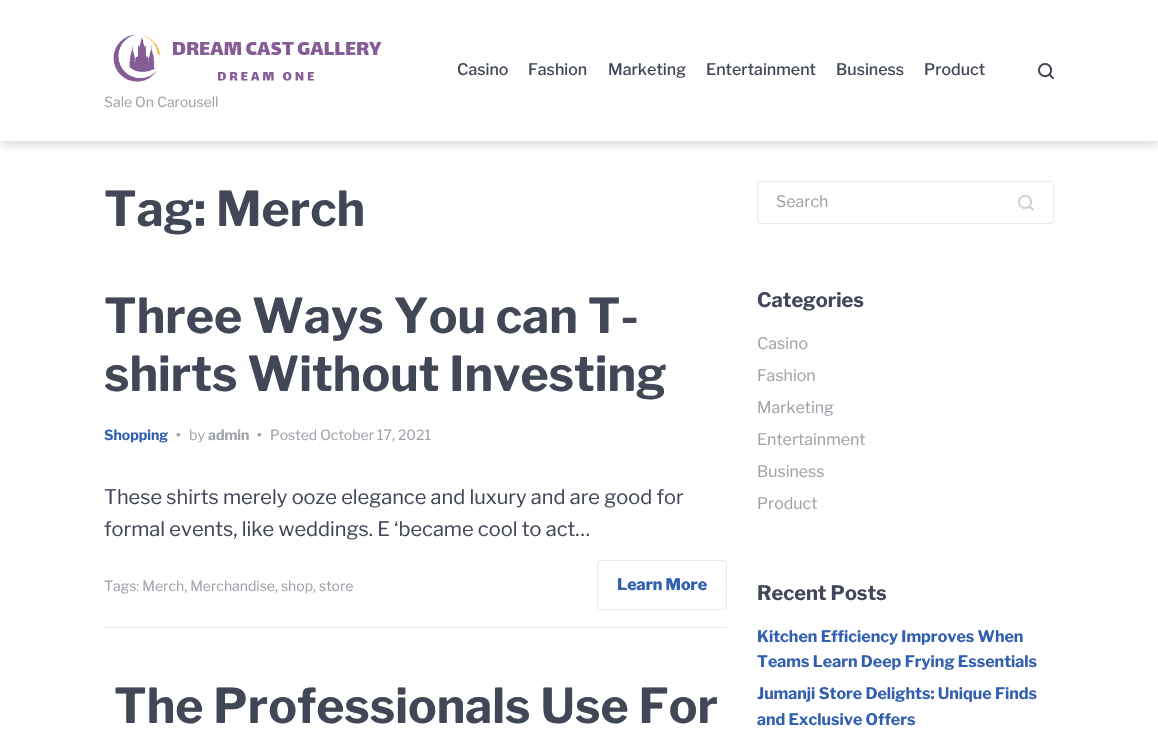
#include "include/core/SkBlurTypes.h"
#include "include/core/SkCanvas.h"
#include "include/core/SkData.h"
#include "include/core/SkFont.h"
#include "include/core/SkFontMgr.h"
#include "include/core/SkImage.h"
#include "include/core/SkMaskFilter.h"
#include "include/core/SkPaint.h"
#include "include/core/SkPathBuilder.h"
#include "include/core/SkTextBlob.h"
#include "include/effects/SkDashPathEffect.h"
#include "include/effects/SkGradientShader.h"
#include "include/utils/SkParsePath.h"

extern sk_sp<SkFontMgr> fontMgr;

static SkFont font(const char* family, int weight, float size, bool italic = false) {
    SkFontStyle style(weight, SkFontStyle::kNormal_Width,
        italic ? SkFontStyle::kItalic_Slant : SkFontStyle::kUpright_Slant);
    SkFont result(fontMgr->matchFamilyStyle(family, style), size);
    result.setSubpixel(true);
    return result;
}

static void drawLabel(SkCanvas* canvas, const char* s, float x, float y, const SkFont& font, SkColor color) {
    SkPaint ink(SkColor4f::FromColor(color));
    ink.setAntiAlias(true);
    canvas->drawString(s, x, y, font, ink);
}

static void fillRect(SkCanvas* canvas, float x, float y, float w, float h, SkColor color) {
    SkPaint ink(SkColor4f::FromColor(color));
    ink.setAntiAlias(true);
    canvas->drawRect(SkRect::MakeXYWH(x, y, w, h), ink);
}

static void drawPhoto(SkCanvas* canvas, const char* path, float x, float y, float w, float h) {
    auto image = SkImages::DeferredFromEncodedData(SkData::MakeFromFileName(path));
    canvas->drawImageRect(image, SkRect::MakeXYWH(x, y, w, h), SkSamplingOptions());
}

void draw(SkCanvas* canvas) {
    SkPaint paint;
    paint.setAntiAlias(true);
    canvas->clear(0xFFFFFFFF);
    canvas->save();
    canvas->clipRect(SkRect::MakeXYWH(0, 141, 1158, 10));
    paint.setColor(0x33414756);
    paint.setMaskFilter(SkMaskFilter::MakeBlur(kNormal_SkBlurStyle, 5));
    canvas->drawRect(SkRect::MakeXYWH(0, 4, 1158, 141), paint);
    paint.setMaskFilter(nullptr);
    canvas->restore();
    SkFont font1 = font("Libre Franklin", 500, 16);
    drawLabel(canvas, "Casino", 457, 75, font1, 0xFF414756);
    drawLabel(canvas, "Fashion", 528, 75, font1, 0xFF414756);
    drawLabel(canvas, "Marketing", 608, 75, font1, 0xFF414756);
    drawLabel(canvas, "Entertainment", 706, 75, font1, 0xFF414756);
    drawLabel(canvas, "Business", 836, 75, font1, 0xFF414756);
    drawLabel(canvas, "Product", 924, 75, font1, 0xFF414756);
    drawPhoto(canvas, "assets/img1.png", 1038, 63, 16, 16);
    drawPhoto(canvas, "assets/img2.png", 113, 34, 269, 48);
    SkFont font2 = font("Libre Franklin", 400, 14);
    drawLabel(canvas, "Sale On Carousell", 104, 107, font2, 0xFFA0A3AA);
    SkFont font3 = font("Libre Franklin", 700, 48);
    drawLabel(canvas, "Tag: Merch", 104, 226, font3, 0xFF414756);
    drawLabel(canvas, "Three Ways You can T-", 104, 333, font3, 0xFF414756);
    drawLabel(canvas, "shirts Without Investing", 104, 391, font3, 0xFF414756);
    SkFont font4 = font("Libre Franklin", 700, 14);
    drawLabel(canvas, "Shopping", 104, 440, font4, 0xFF3260B1);
    drawLabel(canvas, "•", 176, 440, font4, 0xFFA0A3AA);
    drawLabel(canvas, "by", 189, 440, font2, 0xFFA0A3AA);
    drawLabel(canvas, "admin", 208, 440, font4, 0xFFA0A3AA);
    drawLabel(canvas, "•", 257, 440, font4, 0xFFA0A3AA);
    drawLabel(canvas, "Posted October 17, 2021", 270, 440, font2, 0xFFA0A3AA);
    SkFont font5 = font("Libre Franklin", 400, 20);
    drawLabel(canvas, "These shirts merely ooze elegance and luxury and are good for", 104, 504, font5, 0xFF414756);
    drawLabel(canvas, "formal events, like weddings. E ‘became cool to act…", 104, 536, font5, 0xFF414756);
    drawLabel(canvas, "Tags: Merch, Merchandise, shop, store", 104, 591, font2, 0xFFA0A3AA);
    paint.setStroke(true);
    paint.setStrokeWidth(1);
    paint.setColor(0xFFE8E9EB);
    canvas->drawRoundRect(SkRect::MakeXYWH(597.5f, 560.5f, 129, 49), 3.5f, 3.5f, paint);
    SkFont font6 = font("Libre Franklin", 800, 16);
    drawLabel(canvas, "Learn More", 617, 590, font6, 0xFF3260B1);
    fillRect(canvas, 104, 627, 623, 1, 0xFFE8E9EB);
    drawLabel(canvas, "The Professionals Use For", 114, 723, font3, 0xFF414756);
    canvas->drawRoundRect(SkRect::MakeXYWH(757.5f, 181.5f, 296, 42), 3.5f, 3.5f, paint);
    SkFont font7 = font("Libre Franklin", 400, 16);
    drawLabel(canvas, "Search", 776, 207, font7, 0xFFA0A3AA);
    drawPhoto(canvas, "assets/img3.png", 1018, 195, 16, 16);
    SkFont font8 = font("Libre Franklin", 700, 20);
    drawLabel(canvas, "Categories", 757, 307, font8, 0xFF414756);
    drawLabel(canvas, "Casino", 757, 349, font7, 0xFFA0A3AA);
    drawLabel(canvas, "Fashion", 757, 381, font7, 0xFFA0A3AA);
    drawLabel(canvas, "Marketing", 757, 413, font7, 0xFFA0A3AA);
    drawLabel(canvas, "Entertainment", 757, 445, font7, 0xFFA0A3AA);
    drawLabel(canvas, "Business", 757, 477, font7, 0xFFA0A3AA);
    drawLabel(canvas, "Product", 757, 509, font7, 0xFFA0A3AA);
    drawLabel(canvas, "Recent Posts", 757, 600, font8, 0xFF414756);
    SkFont font9 = font("Libre Franklin", 700, 16);
    drawLabel(canvas, "Kitchen Efficiency Improves When", 757, 642, font9, 0xFF3260B1);
    drawLabel(canvas, "Teams Learn Deep Frying Essentials", 757, 667, font9, 0xFF3260B1);
    drawLabel(canvas, "Jumanji Store Delights: Unique Finds", 757, 699, font9, 0xFF3260B1);
    drawLabel(canvas, "and Exclusive Offers", 757, 725, font9, 0xFF3260B1);
}
